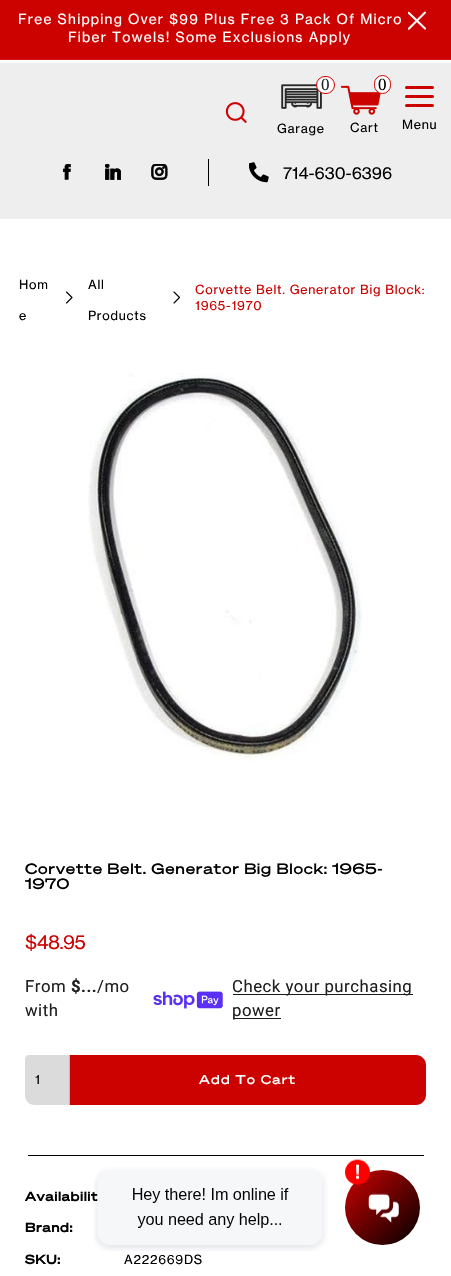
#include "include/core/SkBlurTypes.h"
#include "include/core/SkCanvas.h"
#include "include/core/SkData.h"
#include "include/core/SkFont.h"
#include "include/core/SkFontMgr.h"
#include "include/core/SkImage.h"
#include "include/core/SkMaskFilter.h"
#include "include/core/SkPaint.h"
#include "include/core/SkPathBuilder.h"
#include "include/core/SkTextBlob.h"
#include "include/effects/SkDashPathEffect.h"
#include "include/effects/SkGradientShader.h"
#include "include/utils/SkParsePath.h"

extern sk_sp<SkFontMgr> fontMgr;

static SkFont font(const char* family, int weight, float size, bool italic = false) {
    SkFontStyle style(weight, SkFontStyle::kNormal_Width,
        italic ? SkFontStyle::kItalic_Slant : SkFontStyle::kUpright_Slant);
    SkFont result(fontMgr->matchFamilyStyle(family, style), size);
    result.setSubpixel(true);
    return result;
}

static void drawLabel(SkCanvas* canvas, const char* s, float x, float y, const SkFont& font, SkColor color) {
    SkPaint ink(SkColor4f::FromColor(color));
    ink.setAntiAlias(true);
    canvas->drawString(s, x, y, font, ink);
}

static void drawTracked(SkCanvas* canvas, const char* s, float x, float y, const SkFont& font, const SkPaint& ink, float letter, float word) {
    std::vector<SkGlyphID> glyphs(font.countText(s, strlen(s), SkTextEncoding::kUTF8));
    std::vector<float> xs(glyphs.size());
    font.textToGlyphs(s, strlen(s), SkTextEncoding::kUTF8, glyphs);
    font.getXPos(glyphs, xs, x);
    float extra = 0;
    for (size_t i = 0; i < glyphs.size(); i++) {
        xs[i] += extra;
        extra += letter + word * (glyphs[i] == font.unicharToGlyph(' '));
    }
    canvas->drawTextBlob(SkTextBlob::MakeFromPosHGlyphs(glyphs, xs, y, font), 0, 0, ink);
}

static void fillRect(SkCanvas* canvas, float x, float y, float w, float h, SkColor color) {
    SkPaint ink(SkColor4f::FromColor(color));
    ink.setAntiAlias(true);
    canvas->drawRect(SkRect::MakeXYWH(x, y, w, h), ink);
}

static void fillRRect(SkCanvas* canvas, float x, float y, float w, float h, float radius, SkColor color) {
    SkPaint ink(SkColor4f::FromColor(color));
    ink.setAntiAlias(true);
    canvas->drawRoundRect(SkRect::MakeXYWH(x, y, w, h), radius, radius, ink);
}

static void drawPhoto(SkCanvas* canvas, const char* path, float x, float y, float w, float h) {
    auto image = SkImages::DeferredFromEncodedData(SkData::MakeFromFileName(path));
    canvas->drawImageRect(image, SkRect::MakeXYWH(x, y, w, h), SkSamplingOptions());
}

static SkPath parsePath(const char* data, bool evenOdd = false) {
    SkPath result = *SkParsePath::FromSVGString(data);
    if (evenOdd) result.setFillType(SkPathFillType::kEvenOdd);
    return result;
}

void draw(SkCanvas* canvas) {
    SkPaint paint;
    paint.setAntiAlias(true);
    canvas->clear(0xFFFFFFFF);
    fillRect(canvas, 0, 0, 451, 59, 0xFFCC0200);
    fillRect(canvas, 0, 59, 451, 1, 0xFFD01614);
    SkFont font1 = font("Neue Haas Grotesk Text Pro", 400, 13.75f);
    paint.setColor(0xFFFFFFFF);
    drawTracked(canvas, "Free Shipping Over $99 Plus Free 3 Pack Of Micro", 18, 24, font1, paint, 1.25f, 0);
    drawTracked(canvas, "Fiber Towels! Some Exclusions Apply", 68, 42, font1, paint, 1.25f, 0);
    drawPhoto(canvas, "assets/img1.png", 408, 11, 18, 19);
    fillRect(canvas, 0, 63, 451, 156, 0xFFEEEEEE);
    drawPhoto(canvas, "assets/img2.png", 225, 102, 22, 21);
    drawPhoto(canvas, "assets/img3.png", 281, 84, 41, 25);
    canvas->drawRoundRect(SkRect::MakeXYWH(316.5f, 76.5f, 18, 17), 8.5f, 8.5f, paint);
    paint.setStroke(true);
    paint.setStrokeWidth(1);
    paint.setColor(0xFFCC0200);
    canvas->drawRoundRect(SkRect::MakeXYWH(316.5f, 76.5f, 18, 17), 8.5f, 8.5f, paint);
    SkFont font2 = font("Liberation Serif", 400, 17);
    drawLabel(canvas, "0", 321, 90, font2, 0xFF22232B);
    SkFont font3 = font("Neue Haas Grotesk Text Pro", 400, 12.5f);
    paint.setStroke(false);
    paint.setColor(0xFF000000);
    drawTracked(canvas, "Garage", 277, 133, font3, paint, 0.75f, 0);
    drawPhoto(canvas, "assets/img4.png", 340, 85, 41, 30);
    paint.setColor(0xFFFFFFFF);
    canvas->drawRoundRect(SkRect::MakeXYWH(374.5f, 75.5f, 16, 18), 8, 8, paint);
    paint.setStroke(true);
    paint.setColor(0xFFCC0200);
    canvas->drawRoundRect(SkRect::MakeXYWH(374.5f, 75.5f, 16, 18), 8, 8, paint);
    drawLabel(canvas, "0", 378, 90, font2, 0xFF000000);
    paint.setStroke(false);
    paint.setColor(0xFF000000);
    drawTracked(canvas, "Cart", 350, 132, font3, paint, 0.75f, 0);
    fillRRect(canvas, 405, 86, 29, 3, 1.5f, 0xFFCC0200);
    fillRRect(canvas, 405, 95, 29, 3, 1.5f, 0xFFCC0200);
    fillRRect(canvas, 405, 104, 29, 3, 1.5f, 0xFFCC0200);
    drawTracked(canvas, "Menu", 402, 129, font3, paint, 0.75f, 0);
    drawPhoto(canvas, "assets/img5.png", 63, 164, 8, 16);
    drawPhoto(canvas, "assets/img6.png", 105, 164, 16, 16);
    drawPhoto(canvas, "assets/img7.png", 151, 164, 17, 16);
    fillRect(canvas, 208, 159, 1, 27, 0xFF000000);
    drawPhoto(canvas, "assets/img8.png", 249, 162, 20, 21);
    SkFont font4 = font("Neue Haas Grotesk Text Pro", 400, 16.25f);
    drawLabel(canvas, "714-630-6396", 283, 179, font4, 0xFF000000);
    drawTracked(canvas, "Hom", 19, 289, font3, paint, 0.75f, 0);
    drawTracked(canvas, "e", 19, 320, font3, paint, 0.75f, 0);
    paint.setStroke(true);
    paint.setStrokeWidth(1.1f);
    paint.setStrokeCap(SkPaint::kRound_Cap);
    paint.setStrokeJoin(SkPaint::kRound_Join);
    canvas->drawPath(parsePath("M66.5 292L72 297.5L66.5 303"), paint);
    paint.setStroke(false);
    drawTracked(canvas, "All", 88, 289, font3, paint, 0.75f, 0);
    drawTracked(canvas, "Products", 88, 320, font3, paint, 0.75f, 0);
    paint.setStroke(true);
    canvas->drawPath(parsePath("M174 292L179.5 297.5L174 303"), paint);
    paint.setStroke(false);
    paint.setColor(0xFFCC0200);
    drawTracked(canvas, "Corvette Belt. Generator Big Block:", 195, 294, font3, paint, 0.75f, 0);
    drawTracked(canvas, "1965-1970", 195, 310, font3, paint, 0.75f, 0);
    drawPhoto(canvas, "assets/img9.png", 88, 373, 275, 389);
    SkFont font5 = font("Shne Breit", 500, 14.7f);
    paint.setColor(0xFF000000);
    drawTracked(canvas, "Corvette Belt. Generator Big Block: 1965-", 25, 874, font5, paint, 0.75f, 0);
    drawTracked(canvas, "1970", 25, 889, font5, paint, 0.75f, 0);
    SkFont font6 = font("Neue Haas Grotesk Text Pro", 400, 19);
    paint.setColor(0xFFCC0200);
    drawTracked(canvas, "$48.95", 25, 949, font6, paint, -0.5f, 0);
    SkFont font7 = font("Roboto", 400, 16.75f);
    paint.setColor(0xFF1F1F1F);
    drawTracked(canvas, "From", 25, 992, font7, paint, 0.5f, 0);
    SkFont font8 = font("Roboto", 700, 16.75f);
    drawTracked(canvas, "$...", 71, 992, font8, paint, 0.5f, 0);
    drawTracked(canvas, "/mo", 97, 992, font7, paint, 0.5f, 0);
    drawTracked(canvas, "with", 25, 1016, font7, paint, 0.5f, 0);
    drawPhoto(canvas, "assets/img10.png", 153, 991, 70, 18);
    fillRect(canvas, 233, 994, 180, 1, 0xFF1A1A1A);
    drawTracked(canvas, "Check your purchasing", 232, 992, font7, paint, 0.5f, 0);
    fillRect(canvas, 233, 1018, 48, 1, 0xFF1A1A1A);
    drawTracked(canvas, "power", 232, 1016, font7, paint, 0.5f, 0);
    fillRect(canvas, 28, 1155, 396, 1, 0xFF000000);
    paint.setColor(0xFFDBDBDB);
    canvas->drawPath(parsePath("M29 1055C27 1055 25 1057 25 1059V1095C25 1101 29 1105 35 1105H70V1055Z"), paint);
    fillRect(canvas, 69, 1055, 1, 50, 0xFFBDBDBD);
    drawLabel(canvas, "1", 35, 1084, font3, 0xFF000000);
    paint.setColor(0xFFCC0200);
    canvas->drawPath(parsePath("M70 1055H416C421.5 1055 426 1059.5 426 1065V1095C426 1100.5 421.5 1105 416 1105H70Z"), paint);
    SkFont font9 = font("Shne Breit", 500, 12.5f);
    paint.setColor(0xFFFFFFFF);
    drawTracked(canvas, "Add To Cart", 199, 1084, font9, paint, 1.25f, 0);
    SkFont font10 = font("Shne Breit", 700, 12.5f);
    paint.setColor(0xFF000000);
    drawTracked(canvas, "Availabilit", 25, 1201, font10, paint, 0.75f, 0);
    drawTracked(canvas, "Brand:", 25, 1232, font10, paint, 0.75f, 0);
    drawTracked(canvas, "SKU:", 25, 1264, font10, paint, 0.75f, 0);
    drawTracked(canvas, "A222669DS", 124, 1264, font3, paint, 0.75f, 0);
    drawPhoto(canvas, "assets/img11.png", 94, 1159, 326, 92);
}
